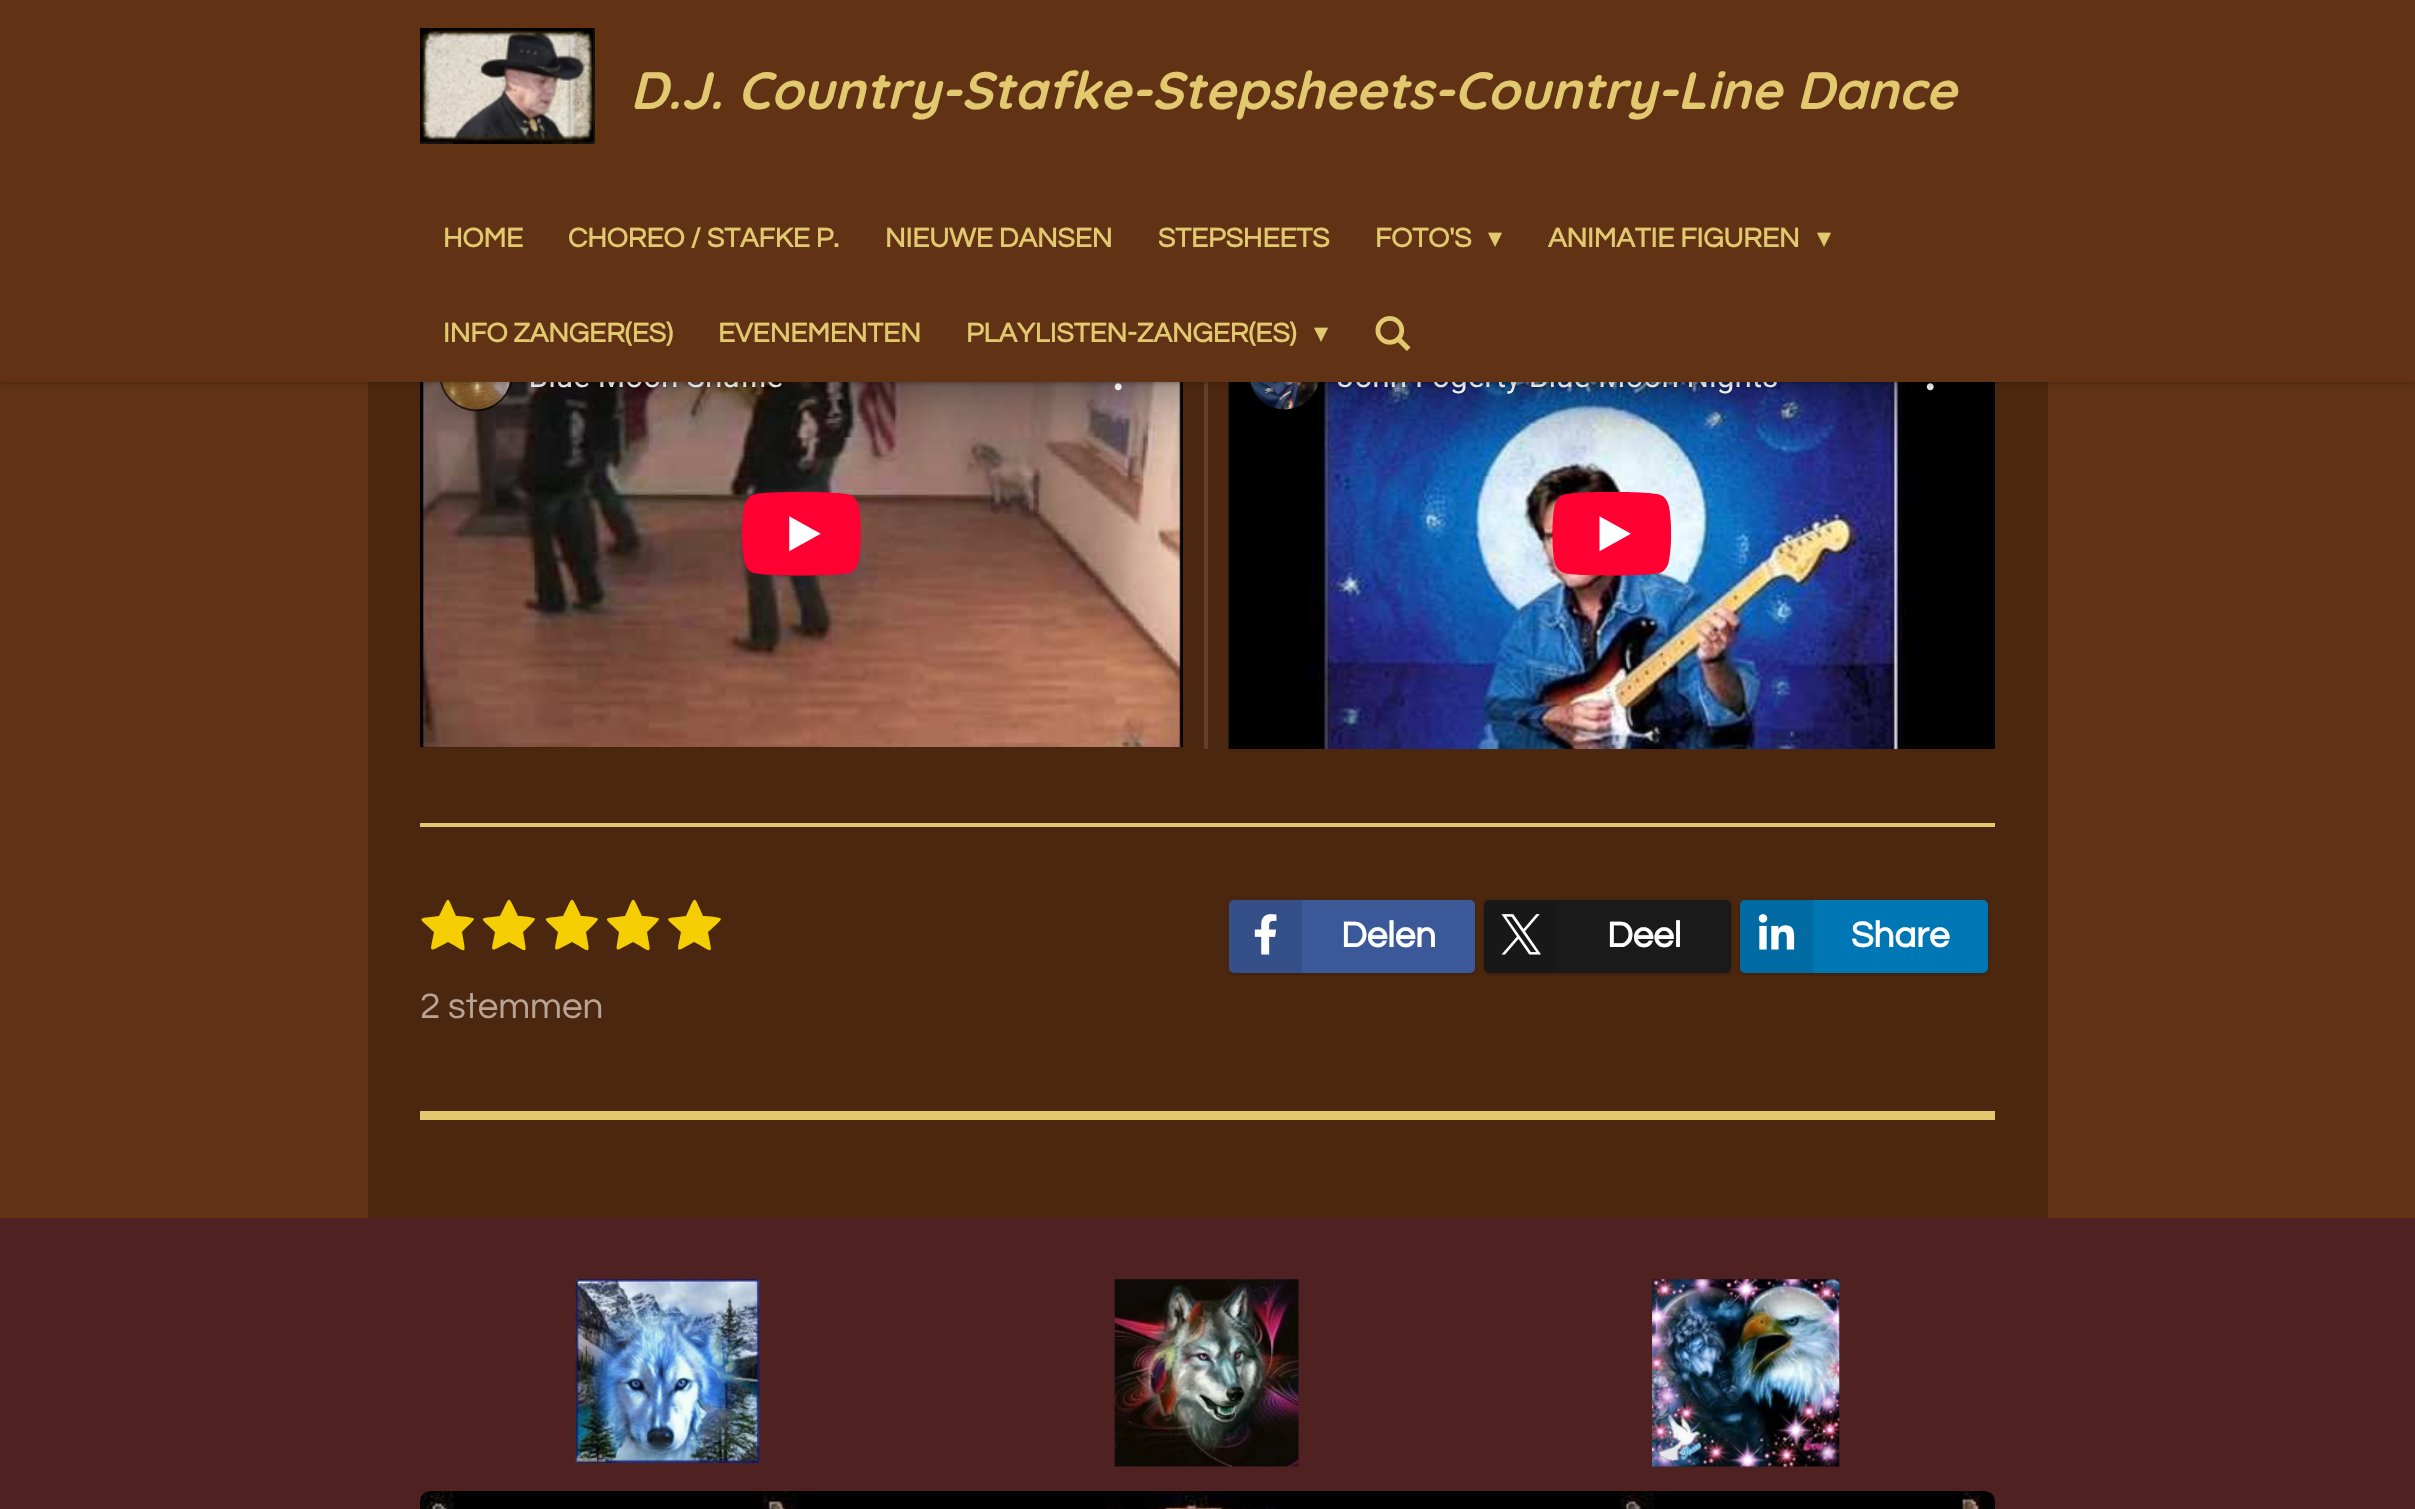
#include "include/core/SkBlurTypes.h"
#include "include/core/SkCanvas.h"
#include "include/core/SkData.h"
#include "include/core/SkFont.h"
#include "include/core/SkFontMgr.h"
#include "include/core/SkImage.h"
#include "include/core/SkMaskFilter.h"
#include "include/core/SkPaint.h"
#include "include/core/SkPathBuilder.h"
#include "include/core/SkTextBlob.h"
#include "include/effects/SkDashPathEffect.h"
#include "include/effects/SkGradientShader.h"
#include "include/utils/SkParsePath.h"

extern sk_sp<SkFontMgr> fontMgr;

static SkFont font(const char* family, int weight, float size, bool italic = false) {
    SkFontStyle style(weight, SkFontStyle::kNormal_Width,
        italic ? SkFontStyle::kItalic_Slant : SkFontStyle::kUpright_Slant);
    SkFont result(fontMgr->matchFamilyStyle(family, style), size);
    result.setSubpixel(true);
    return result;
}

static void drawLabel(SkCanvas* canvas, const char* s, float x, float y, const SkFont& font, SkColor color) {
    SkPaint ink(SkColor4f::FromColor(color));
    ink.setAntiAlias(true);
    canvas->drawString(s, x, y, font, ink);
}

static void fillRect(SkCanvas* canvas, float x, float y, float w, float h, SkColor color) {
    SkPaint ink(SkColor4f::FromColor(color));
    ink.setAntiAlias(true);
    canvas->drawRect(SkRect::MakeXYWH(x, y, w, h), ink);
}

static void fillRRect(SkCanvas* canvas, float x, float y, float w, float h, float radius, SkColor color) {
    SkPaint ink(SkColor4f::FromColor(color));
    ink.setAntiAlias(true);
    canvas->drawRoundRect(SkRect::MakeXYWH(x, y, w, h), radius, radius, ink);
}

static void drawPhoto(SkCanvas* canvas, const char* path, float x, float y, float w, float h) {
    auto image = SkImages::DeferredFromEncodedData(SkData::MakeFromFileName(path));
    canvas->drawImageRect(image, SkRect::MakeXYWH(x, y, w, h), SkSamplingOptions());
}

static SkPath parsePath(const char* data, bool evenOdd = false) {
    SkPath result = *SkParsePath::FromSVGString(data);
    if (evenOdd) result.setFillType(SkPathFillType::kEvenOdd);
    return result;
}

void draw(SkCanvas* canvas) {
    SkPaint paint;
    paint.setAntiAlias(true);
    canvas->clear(0xFF613213);
    fillRect(canvas, 368, 382, 1680, 836, 0xFF4C270F);
    fillRect(canvas, 1204, 382, 4, 367, 0xFF62402A);
    drawPhoto(canvas, "assets/img3.png", 420, 382, 763, 366);
    drawPhoto(canvas, "assets/img4.png", 1228, 382, 767, 367);
    paint.setColor(0x4D000000);
    paint.setMaskFilter(SkMaskFilter::MakeBlur(kNormal_SkBlurStyle, 2.5f));
    canvas->drawRect(SkRect::MakeXYWH(0, 2, 2415, 381), paint);
    paint.setMaskFilter(nullptr);
    fillRect(canvas, 0, 0, 2415, 382, 0xFF613213);
    drawPhoto(canvas, "assets/img1.png", 420, 28, 175, 116);
    SkFont font1 = font("Quicksand", 700, 52.5f, true);
    drawLabel(canvas, "D.J. Country-Stafke-Stepsheets-Country-Line Dance", 630, 109, font1, 0xFFE2C86F);
    SkFont font2 = font("Questrial", 700, 28);
    drawLabel(canvas, "HOME", 443, 247, font2, 0xFFE2C86F);
    drawLabel(canvas, "CHOREO / STAFKE P.", 568, 247, font2, 0xFFE2C86F);
    drawLabel(canvas, "NIEUWE DANSEN", 885, 247, font2, 0xFFE2C86F);
    drawLabel(canvas, "STEPSHEETS", 1158, 247, font2, 0xFFE2C86F);
    drawLabel(canvas, "FOTO'S", 1375, 247, font2, 0xFFE2C86F);
    SkFont font3 = font("DejaVu Sans", 400, 28);
    drawLabel(canvas, "▾", 1488, 247, font3, 0xFFE2C86F);
    drawLabel(canvas, "ANIMATIE FIGUREN", 1548, 247, font2, 0xFFE2C86F);
    drawLabel(canvas, "▾", 1817, 247, font3, 0xFFE2C86F);
    drawLabel(canvas, "INFO ZANGER(ES)", 443, 342, font2, 0xFFE2C86F);
    drawLabel(canvas, "EVENEMENTEN", 718, 342, font2, 0xFFE2C86F);
    drawLabel(canvas, "PLAYLISTEN-ZANGER(ES)", 966, 342, font2, 0xFFE2C86F);
    drawLabel(canvas, "▾", 1314, 342, font3, 0xFFE2C86F);
    drawPhoto(canvas, "assets/img2.png", 1375, 316, 36, 35);
    fillRect(canvas, 420, 823, 1575, 4, 0xFFE2C86F);
    paint.setColor(0x33000000);
    paint.setMaskFilter(SkMaskFilter::MakeBlur(kNormal_SkBlurStyle, 2.5f));
    canvas->drawRoundRect(SkRect::MakeXYWH(1229, 901, 246, 74), 5, 5, paint);
    paint.setMaskFilter(nullptr);
    fillRRect(canvas, 1229, 900, 246, 73, 5, 0xFF3B5998);
    paint.setColor(0x1A000000);
    canvas->drawPath(parsePath("M1234 900H1302V973H1234C1231 973 1229 971 1229 968V905C1229 902 1231 900 1234 900Z"), paint);
    drawPhoto(canvas, "assets/img5.png", 1254, 914, 23, 41);
    SkFont font4 = font("Questrial", 700, 36.75f);
    drawLabel(canvas, "Delen", 1341, 947, font4, 0xFFFFFFFF);
    paint.setColor(0x33000000);
    paint.setMaskFilter(SkMaskFilter::MakeBlur(kNormal_SkBlurStyle, 2.5f));
    canvas->drawRoundRect(SkRect::MakeXYWH(1484, 901, 247, 74), 5, 5, paint);
    paint.setMaskFilter(nullptr);
    fillRRect(canvas, 1484, 900, 247, 73, 5, 0xFF1A1A1A);
    paint.setColor(0x1A000000);
    canvas->drawPath(parsePath("M1489 900H1558V973H1489C1486 973 1484 971 1484 968V905C1484 902 1486 900 1489 900Z"), paint);
    drawPhoto(canvas, "assets/img6.png", 1501, 914, 40, 41);
    drawLabel(canvas, "Deel", 1607, 947, font4, 0xFFFFFFFF);
    paint.setColor(0x33000000);
    paint.setMaskFilter(SkMaskFilter::MakeBlur(kNormal_SkBlurStyle, 2.5f));
    canvas->drawRoundRect(SkRect::MakeXYWH(1740, 901, 248, 74), 5, 5, paint);
    paint.setMaskFilter(nullptr);
    fillRRect(canvas, 1740, 900, 248, 73, 5, 0xFF0077B5);
    paint.setColor(0x1A000000);
    canvas->drawPath(parsePath("M1745 900H1813V973H1745C1742 973 1740 971 1740 968V905C1740 902 1742 900 1745 900Z"), paint);
    drawPhoto(canvas, "assets/img7.png", 1758, 914, 37, 36);
    drawLabel(canvas, "Share", 1851, 947, font4, 0xFFFFFFFF);
    paint.setColor(0xFFF5CE02);
    canvas->drawPath(parsePath("M474 919C474 921 463 930 462 932C466 956 468 953 448 942C427 953 430 954 434 932C417 916 416 919 439 916C450 895 446 894 456 916C459 916 474 917 474 919Z"), paint);
    canvas->drawPath(parsePath("M535 919C535 921 525 930 523 932C527 956 529 953 509 942C488 953 491 954 495 932C479 916 477 919 500 916C511 895 507 894 518 916C520 916 535 917 535 919Z"), paint);
    canvas->drawPath(parsePath("M598 919C598 921 588 930 586 932C590 956 592 953 572 942C551 953 554 954 558 932C542 916 540 919 563 916C574 895 570 894 581 916C583 916 598 917 598 919Z"), paint);
    canvas->drawPath(parsePath("M659 919C659 921 649 930 647 932C651 956 653 953 633 942C612 953 616 954 619 932C603 916 601 919 625 916C635 895 631 894 642 916C644 916 659 917 659 919Z"), paint);
    canvas->drawPath(parsePath("M721 919C721 921 710 930 708 932C712 956 715 953 694 942C674 953 677 954 681 932C664 916 662 919 686 916C696 895 693 894 703 916C706 916 721 917 721 919Z"), paint);
    SkFont font5 = font("Questrial", 400, 36.75f);
    drawLabel(canvas, "2 stemmen", 420, 1018, font5, 0xFFB8A395);
    fillRect(canvas, 420, 1111, 1575, 9, 0xFFE2C86F);
    fillRect(canvas, 0, 1218, 2415, 291, 0xFF4F2121);
    drawPhoto(canvas, "assets/img8.png", 575, 1279, 185, 184);
    drawPhoto(canvas, "assets/img9.png", 1114, 1279, 185, 188);
    drawPhoto(canvas, "assets/img10.png", 1652, 1279, 188, 188);
    drawPhoto(canvas, "assets/img11.png", 420, 1491, 1575, 18);
}
